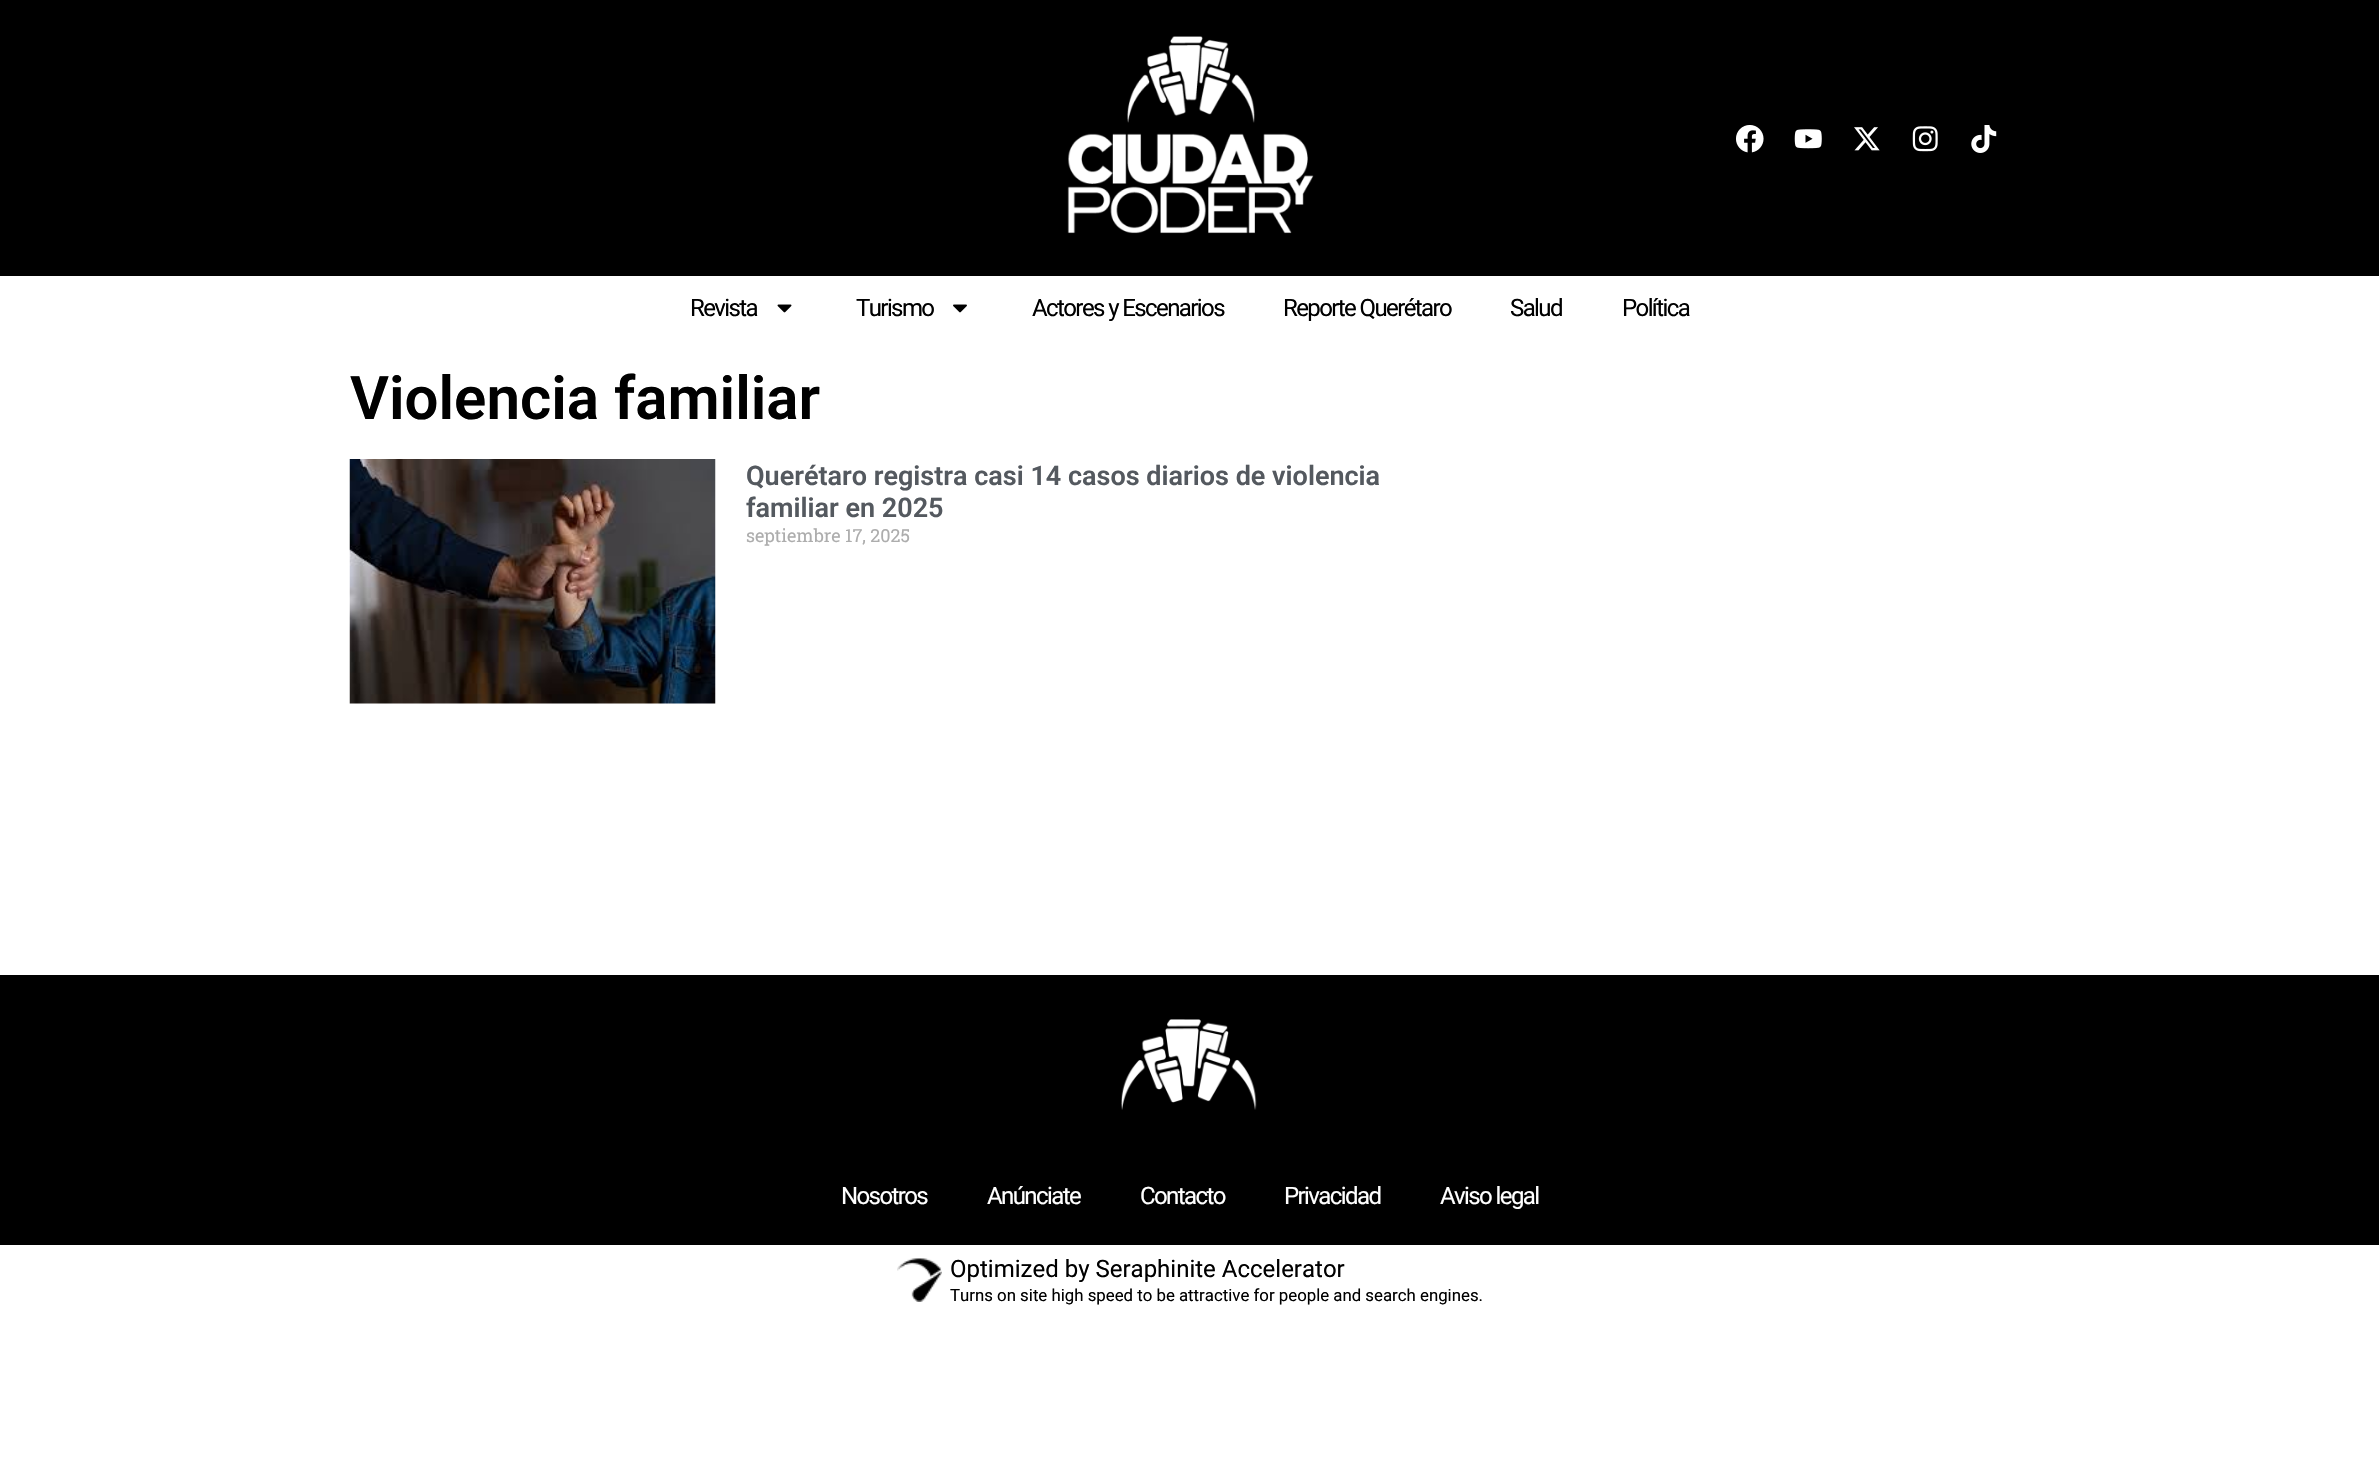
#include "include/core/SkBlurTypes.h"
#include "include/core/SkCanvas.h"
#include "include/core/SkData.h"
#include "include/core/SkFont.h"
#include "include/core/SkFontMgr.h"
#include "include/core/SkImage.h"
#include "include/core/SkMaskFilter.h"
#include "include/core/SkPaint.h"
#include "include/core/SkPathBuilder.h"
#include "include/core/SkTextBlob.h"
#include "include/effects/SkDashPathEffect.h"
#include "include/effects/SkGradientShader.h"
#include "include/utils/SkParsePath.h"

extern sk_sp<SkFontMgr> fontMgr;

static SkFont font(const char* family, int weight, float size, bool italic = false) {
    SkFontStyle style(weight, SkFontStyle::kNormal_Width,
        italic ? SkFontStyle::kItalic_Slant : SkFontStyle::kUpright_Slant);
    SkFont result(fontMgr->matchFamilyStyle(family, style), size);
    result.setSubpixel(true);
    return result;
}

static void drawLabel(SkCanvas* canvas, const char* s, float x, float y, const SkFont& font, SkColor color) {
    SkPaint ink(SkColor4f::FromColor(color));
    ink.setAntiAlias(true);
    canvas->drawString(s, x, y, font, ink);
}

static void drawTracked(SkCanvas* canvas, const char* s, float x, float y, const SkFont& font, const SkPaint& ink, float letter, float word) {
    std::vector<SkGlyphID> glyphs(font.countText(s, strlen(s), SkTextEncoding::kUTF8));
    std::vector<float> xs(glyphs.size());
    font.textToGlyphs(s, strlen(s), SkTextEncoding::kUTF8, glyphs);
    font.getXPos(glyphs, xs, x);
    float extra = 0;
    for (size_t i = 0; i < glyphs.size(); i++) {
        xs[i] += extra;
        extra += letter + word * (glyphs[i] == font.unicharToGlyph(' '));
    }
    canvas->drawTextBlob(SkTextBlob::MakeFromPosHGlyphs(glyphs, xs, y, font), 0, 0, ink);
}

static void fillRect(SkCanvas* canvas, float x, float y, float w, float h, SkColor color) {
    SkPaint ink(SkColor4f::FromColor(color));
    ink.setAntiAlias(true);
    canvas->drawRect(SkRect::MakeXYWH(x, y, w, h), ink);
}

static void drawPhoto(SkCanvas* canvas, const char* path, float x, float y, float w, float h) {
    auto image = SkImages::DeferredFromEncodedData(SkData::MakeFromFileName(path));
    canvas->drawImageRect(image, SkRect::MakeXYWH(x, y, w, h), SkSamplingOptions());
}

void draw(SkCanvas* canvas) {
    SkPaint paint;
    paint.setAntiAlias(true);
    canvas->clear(0xFFFFFFFF);
    fillRect(canvas, 0, 0, 2379, 276, 0xFF000000);
    drawPhoto(canvas, "assets/img1.png", 1067, 36, 247, 198);
    drawPhoto(canvas, "assets/img2.png", 1736, 125, 28, 28);
    drawPhoto(canvas, "assets/img3.png", 1794, 129, 28, 20);
    drawPhoto(canvas, "assets/img4.png", 1854, 127, 26, 24);
    drawPhoto(canvas, "assets/img5.png", 1912, 126, 26, 26);
    drawPhoto(canvas, "assets/img6.png", 1971, 125, 26, 28);
    SkFont font1 = font("Roboto", 400, 24);
    paint.setColor(0xFF000000);
    drawTracked(canvas, "Revista", 690, 316, font1, paint, -1.6f, 0);
    drawPhoto(canvas, "assets/img7.png", 777, 304, 15, 9);
    drawTracked(canvas, "Turismo", 856, 316, font1, paint, -1.6f, 0);
    drawPhoto(canvas, "assets/img8.png", 953, 304, 14, 9);
    drawTracked(canvas, "Actores y Escenarios", 1032, 316, font1, paint, -1.6f, 0);
    drawTracked(canvas, "Reporte Querétaro", 1283, 316, font1, paint, -1.6f, 0);
    drawTracked(canvas, "Salud", 1510, 316, font1, paint, -1.6f, 0);
    drawTracked(canvas, "Política", 1622, 316, font1, paint, -1.6f, 0);
    SkFont font2 = font("Roboto", 600, 60);
    drawLabel(canvas, "Violencia familiar", 350, 419, font2, 0xFF000000);
    drawPhoto(canvas, "assets/img9.png", 349, 459, 367, 245);
    SkFont font3 = font("Roboto", 600, 27);
    drawLabel(canvas, "Querétaro registra casi 14 casos diarios de violencia", 746, 485, font3, 0xFF54595F);
    drawLabel(canvas, "familiar en 2025", 746, 517, font3, 0xFF54595F);
    SkFont font4 = font("Roboto Slab", 400, 18);
    drawLabel(canvas, "septiembre 17, 2025", 746, 542, font4, 0xFFADADAD);
    fillRect(canvas, 0, 975, 2379, 270, 0xFF000000);
    drawPhoto(canvas, "assets/img10.png", 1121, 1019, 136, 91);
    paint.setColor(0xFFFFFFFF);
    drawTracked(canvas, "Nosotros", 841, 1204, font1, paint, -1.6f, 0);
    drawTracked(canvas, "Anúnciate", 987, 1204, font1, paint, -1.6f, 0);
    drawTracked(canvas, "Contacto", 1140, 1204, font1, paint, -1.6f, 0);
    drawTracked(canvas, "Privacidad", 1284, 1204, font1, paint, -1.6f, 0);
    drawTracked(canvas, "Aviso legal", 1440, 1204, font1, paint, -1.6f, 0);
    drawPhoto(canvas, "assets/img11.png", 897, 1258, 45, 44);
    drawLabel(canvas, "Optimized by Seraphinite Accelerator", 950, 1277, font1, 0xFF000000);
    SkFont font5 = font("Roboto", 400, 16.8f);
    drawLabel(canvas, "Turns on site high speed to be attractive for people and search engines.", 950, 1301, font5, 0xFF000000);
}
